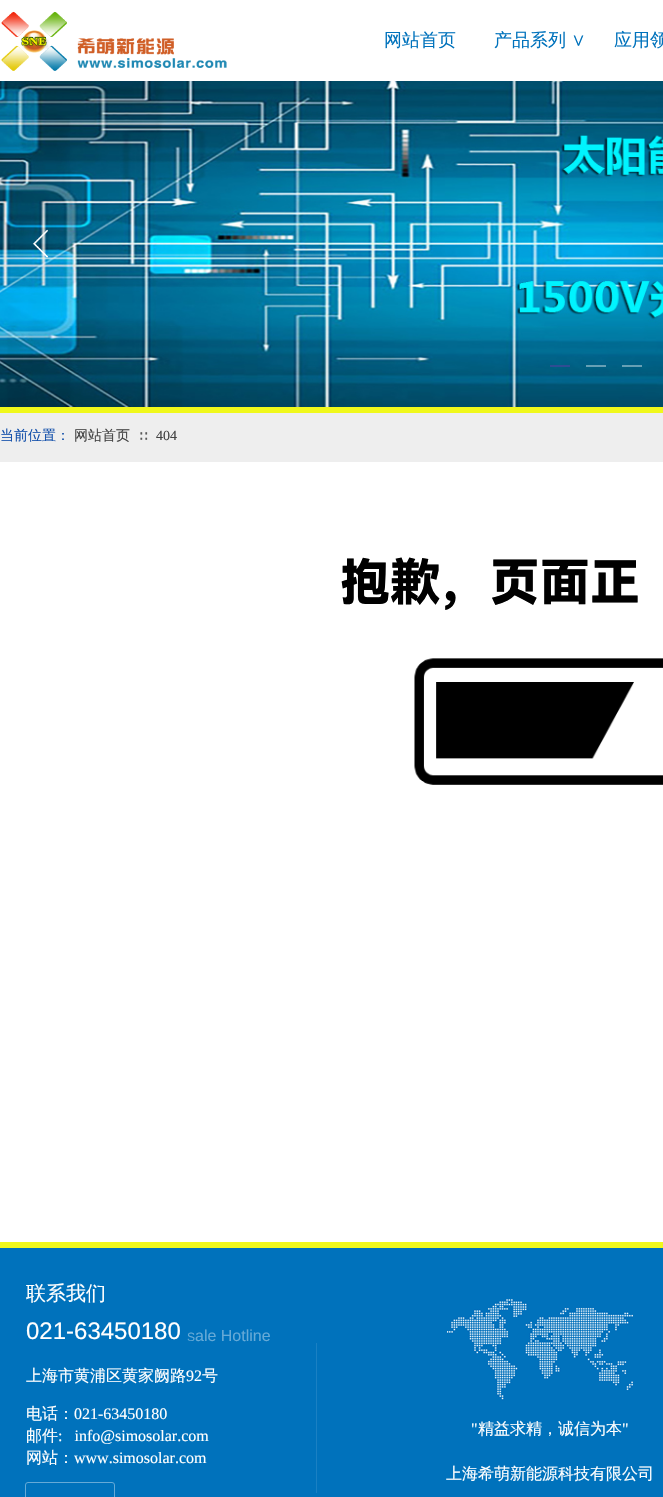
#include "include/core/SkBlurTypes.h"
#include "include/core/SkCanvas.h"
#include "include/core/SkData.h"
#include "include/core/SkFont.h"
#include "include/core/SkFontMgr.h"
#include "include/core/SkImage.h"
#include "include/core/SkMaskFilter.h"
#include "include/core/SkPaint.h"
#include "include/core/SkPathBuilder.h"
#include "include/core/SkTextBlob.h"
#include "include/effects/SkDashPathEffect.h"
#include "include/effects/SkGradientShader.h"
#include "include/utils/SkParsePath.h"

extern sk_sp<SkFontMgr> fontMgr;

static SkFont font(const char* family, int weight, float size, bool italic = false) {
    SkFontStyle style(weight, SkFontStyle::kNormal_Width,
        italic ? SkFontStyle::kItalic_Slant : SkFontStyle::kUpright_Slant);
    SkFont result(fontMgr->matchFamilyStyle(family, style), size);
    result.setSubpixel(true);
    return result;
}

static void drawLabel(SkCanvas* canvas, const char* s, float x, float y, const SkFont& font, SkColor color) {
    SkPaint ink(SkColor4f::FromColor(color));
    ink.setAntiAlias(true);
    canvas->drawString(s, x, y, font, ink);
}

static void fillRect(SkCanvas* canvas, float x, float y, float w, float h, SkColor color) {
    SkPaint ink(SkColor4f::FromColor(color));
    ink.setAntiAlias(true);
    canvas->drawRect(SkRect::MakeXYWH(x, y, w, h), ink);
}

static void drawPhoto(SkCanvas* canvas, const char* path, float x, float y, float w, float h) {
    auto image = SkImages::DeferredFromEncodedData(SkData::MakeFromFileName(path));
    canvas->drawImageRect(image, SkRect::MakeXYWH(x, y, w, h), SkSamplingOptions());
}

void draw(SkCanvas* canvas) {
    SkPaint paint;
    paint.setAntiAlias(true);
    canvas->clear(0xFFFFFFFF);
    drawPhoto(canvas, "assets/img1.png", 1, 11, 226, 60);
    SkFont font1 = font("WenQuanYi Zen Hei", 500, 18);
    drawLabel(canvas, "网站首页", 384, 46, font1, 0xFF0072BC);
    drawLabel(canvas, "产品系列", 494, 46, font1, 0xFF0072BC);
    drawLabel(canvas, "∨", 571, 46, font1, 0xFF0072BC);
    drawLabel(canvas, "应用领", 614, 46, font1, 0xFF0072BC);
    drawPhoto(canvas, "assets/img2.png", 0, 81, 663, 326);
    drawPhoto(canvas, "assets/img3.png", 32, 229, 17, 29);
    fillRect(canvas, 550, 365, 20, 2, 0xFF2F4D93);
    fillRect(canvas, 586, 365, 20, 2, 0x66FFFFFF);
    fillRect(canvas, 622, 365, 20, 2, 0x66FFFFFF);
    fillRect(canvas, 0, 407, 663, 6, 0xFFF0F81B);
    fillRect(canvas, 0, 413, 663, 49, 0xFFEEEEEE);
    SkFont font2 = font("WenQuanYi Zen Hei", 500, 14);
    drawLabel(canvas, "当前位置：", 0, 440, font2, 0xFF104EAA);
    drawLabel(canvas, "网站首页", 74, 440, font2, 0xFF434343);
    SkFont font3 = font("WenQuanYi Zen Hei", 500, 12);
    drawLabel(canvas, "∷", 138, 440, font3, 0xFF5A5A5A);
    SkFont font4 = font("Liberation Serif", 400, 14);
    drawLabel(canvas, "404", 156, 440, font4, 0xFF434343);
    SkFont font5 = font("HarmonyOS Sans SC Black", 900, 50);
    drawLabel(canvas, "抱歉，页面正", 340, 600, font5, 0xFF000000);
    drawPhoto(canvas, "assets/img4.png", 414, 658, 249, 127);
    fillRect(canvas, 0, 1248, 663, 249, 0xFF0072BC);
    fillRect(canvas, 0, 1242, 663, 6, 0xFFF0F81B);
    SkFont font6 = font("WenQuanYi Zen Hei", 500, 20);
    drawLabel(canvas, "联系我们", 26, 1300, font6, 0xFFFFFFFF);
    SkFont font7 = font("Liberation Sans", 400, 24);
    drawLabel(canvas, "021-63450180", 26, 1339, font7, 0xFFFFFFFF);
    SkFont font8 = font("Liberation Sans", 400, 12);
    drawLabel(canvas, "S", 187, 1341, font8, 0xFF66AAD7);
    SkFont font9 = font("Liberation Sans", 400, 16);
    drawLabel(canvas, "ale Hotline", 195, 1341, font9, 0xFF66AAD7);
    drawPhoto(canvas, "assets/img5.png", 447, 1299, 187, 102);
    SkFont font10 = font("WenQuanYi Zen Hei", 500, 16);
    drawLabel(canvas, "上海市黄浦区黄家阙路", 26, 1381, font10, 0xFFFFFFFF);
    SkFont font11 = font("Liberation Serif", 400, 16);
    drawLabel(canvas, "92", 186, 1381, font11, 0xFFFFFFFF);
    drawLabel(canvas, "号", 202, 1381, font10, 0xFFFFFFFF);
    drawLabel(canvas, "电话：", 26, 1419, font10, 0xFFFFFFFF);
    drawLabel(canvas, "021-63450180", 74, 1419, font11, 0xFFFFFFFF);
    drawLabel(canvas, "邮件", 26, 1441, font10, 0xFFFFFFFF);
    drawLabel(canvas, ":   info@simosolar.com", 58, 1441, font11, 0xFFFFFFFF);
    drawLabel(canvas, "网站：", 26, 1463, font10, 0xFFFFFFFF);
    drawLabel(canvas, "www.simosolar.com", 74, 1463, font11, 0xFFFFFFFF);
    fillRect(canvas, 316, 1343, 1, 150, 0xFF1A80C3);
    drawLabel(canvas, "\"", 471, 1434, font11, 0xFFFFFFFF);
    drawLabel(canvas, "精益求精，诚信为本", 478, 1434, font10, 0xFFFFFFFF);
    drawLabel(canvas, "\"", 622, 1434, font11, 0xFFFFFFFF);
    drawLabel(canvas, "上海希萌新能源科技有限公司", 446, 1479, font10, 0xFFFFFFFF);
    paint.setStroke(true);
    paint.setStrokeWidth(1);
    paint.setColor(0xFF66AAD7);
    canvas->drawRoundRect(SkRect::MakeXYWH(25.5f, 1482.5f, 89, 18), 2.5f, 2.5f, paint);
}
